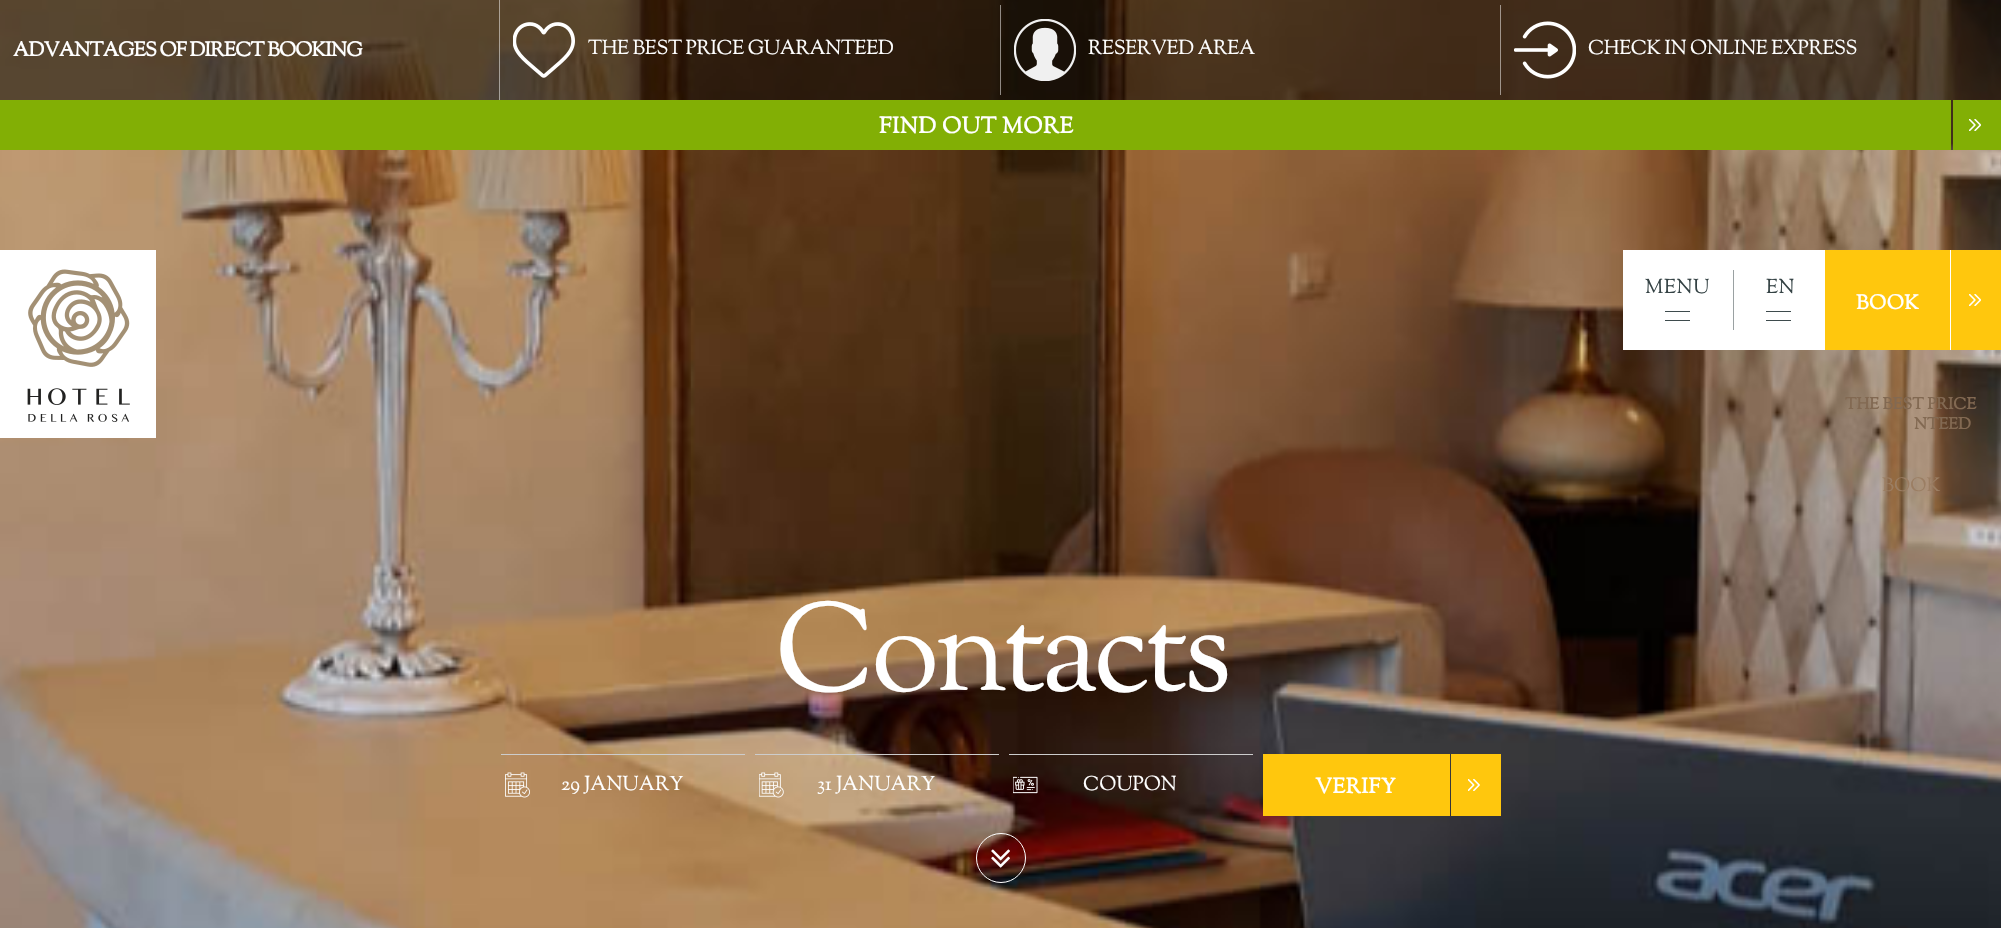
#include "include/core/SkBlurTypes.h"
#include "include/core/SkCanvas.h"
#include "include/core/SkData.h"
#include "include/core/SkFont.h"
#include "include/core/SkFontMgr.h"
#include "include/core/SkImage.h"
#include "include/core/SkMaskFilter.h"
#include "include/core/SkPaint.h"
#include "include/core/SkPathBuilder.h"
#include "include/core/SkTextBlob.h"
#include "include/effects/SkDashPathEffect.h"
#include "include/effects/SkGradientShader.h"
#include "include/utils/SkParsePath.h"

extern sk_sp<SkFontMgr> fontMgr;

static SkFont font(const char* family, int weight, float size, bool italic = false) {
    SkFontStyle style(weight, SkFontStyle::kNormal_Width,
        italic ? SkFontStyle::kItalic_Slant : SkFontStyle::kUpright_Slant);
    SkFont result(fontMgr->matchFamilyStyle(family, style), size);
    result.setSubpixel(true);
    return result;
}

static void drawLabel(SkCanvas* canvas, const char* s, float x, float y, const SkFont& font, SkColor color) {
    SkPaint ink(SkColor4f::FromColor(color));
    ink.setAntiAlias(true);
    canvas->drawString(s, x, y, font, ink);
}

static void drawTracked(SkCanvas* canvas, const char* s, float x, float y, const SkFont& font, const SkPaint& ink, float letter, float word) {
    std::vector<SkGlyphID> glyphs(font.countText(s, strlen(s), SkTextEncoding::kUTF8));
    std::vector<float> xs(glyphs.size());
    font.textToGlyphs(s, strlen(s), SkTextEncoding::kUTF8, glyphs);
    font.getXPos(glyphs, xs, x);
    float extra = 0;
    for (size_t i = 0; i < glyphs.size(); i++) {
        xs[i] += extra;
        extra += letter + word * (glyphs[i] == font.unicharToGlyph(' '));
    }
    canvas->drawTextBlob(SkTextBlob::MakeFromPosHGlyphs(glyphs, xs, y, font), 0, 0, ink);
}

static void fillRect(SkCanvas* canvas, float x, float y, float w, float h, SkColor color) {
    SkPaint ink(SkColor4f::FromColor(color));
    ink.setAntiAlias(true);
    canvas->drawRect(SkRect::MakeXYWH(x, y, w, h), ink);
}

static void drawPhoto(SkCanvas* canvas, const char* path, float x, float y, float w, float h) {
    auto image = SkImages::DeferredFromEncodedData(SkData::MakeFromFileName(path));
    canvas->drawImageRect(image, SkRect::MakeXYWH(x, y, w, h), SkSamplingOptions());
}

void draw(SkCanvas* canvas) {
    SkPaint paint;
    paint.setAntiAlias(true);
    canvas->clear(0xFFFFFFFF);
    drawPhoto(canvas, "assets/img1.png", 0, 0, 2001, 928);
    fillRect(canvas, 0, 0, 2001, 150, 0x8A000000);
    fillRect(canvas, 499, 0, 1, 100, 0x80FFFFFF);
    SkFont font1 = font("Sorts Mill Goudy", 700, 20);
    paint.setColor(0xFFFFFFFF);
    drawTracked(canvas, "ADVANTAGES OF DIRECT BOOKING", 13, 56, font1, paint, -0.8f, 0);
    fillRect(canvas, 1000, 5, 1, 90, 0x80FFFFFF);
    drawPhoto(canvas, "assets/img2.png", 513, 22, 62, 56);
    SkFont font2 = font("Sorts Mill Goudy", 400, 20);
    drawTracked(canvas, "THE BEST PRICE GUARANTEED", 588, 54, font2, paint, -0.4f, 0);
    fillRect(canvas, 1500, 5, 1, 90, 0x80FFFFFF);
    drawPhoto(canvas, "assets/img3.png", 1014, 19, 62, 62);
    drawTracked(canvas, "RESERVED AREA", 1088, 54, font2, paint, -0.4f, 0);
    drawPhoto(canvas, "assets/img4.png", 1514, 21, 62, 58);
    drawTracked(canvas, "CHECK IN ONLINE EXPRESS", 1588, 54, font2, paint, -0.4f, 0);
    fillRect(canvas, 0, 100, 1951, 50, 0xFF82AF05);
    SkFont font3 = font("Sorts Mill Goudy", 700, 22.5f);
    drawTracked(canvas, "FIND OUT MORE", 879, 133, font3, paint, 0.5f, 0);
    fillRect(canvas, 1953, 100, 48, 50, 0xFF82AF05);
    drawPhoto(canvas, "assets/img5.png", 1969, 119, 12, 12);
    fillRect(canvas, 0, 250, 156, 188, 0xFFFFFFFF);
    drawPhoto(canvas, "assets/img6.png", 27, 269, 103, 154);
    fillRect(canvas, 1623, 250, 328, 100, 0xFFFFFFFF);
    paint.setColor(0xFF344244);
    drawTracked(canvas, "MENU", 1645, 293, font2, paint, 0.5f, 0);
    fillRect(canvas, 1665, 311, 25, 1, 0xFF3E4B4D);
    fillRect(canvas, 1665, 320, 25, 1, 0xFF3E4B4D);
    fillRect(canvas, 1733, 270, 1, 60, 0xFF9AA1A2);
    drawTracked(canvas, "EN", 1766, 293, font2, paint, 0.5f, 0);
    fillRect(canvas, 1766, 311, 25, 1, 0xFF3E4B4D);
    fillRect(canvas, 1766, 320, 25, 1, 0xFF3E4B4D);
    fillRect(canvas, 1825, 250, 125, 100, 0xFFFFC70D);
    paint.setColor(0xFFFFFFFF);
    drawTracked(canvas, "BOOK", 1856, 309, font1, paint, 0.5f, 0);
    fillRect(canvas, 1951, 250, 50, 100, 0xFFFFC70D);
    drawPhoto(canvas, "assets/img7.png", 1969, 294, 12, 12);
    SkFont font4 = font("Sorts Mill Goudy", 400, 125);
    drawTracked(canvas, "Contacts", 775, 690, font4, paint, -5, 0);
    drawPhoto(canvas, "assets/img8.png", 505, 772, 25, 26);
    fillRect(canvas, 501, 754, 244, 1, 0xFFCCCCCC);
    drawLabel(canvas, "29 JANUARY", 561, 790, font2, 0xFFFFFFFF);
    drawPhoto(canvas, "assets/img9.png", 759, 772, 25, 26);
    fillRect(canvas, 755, 754, 244, 1, 0xFFCCCCCC);
    drawLabel(canvas, "31 JANUARY", 817, 790, font2, 0xFFFFFFFF);
    drawPhoto(canvas, "assets/img10.png", 1013, 776, 25, 18);
    fillRect(canvas, 1009, 754, 244, 1, 0xFFCCCCCC);
    drawLabel(canvas, "COUPON", 1083, 790, font2, 0xFFFFFFFF);
    fillRect(canvas, 1263, 754, 187, 62, 0xFFFFC70D);
    SkFont font5 = font("Sorts Mill Goudy", 700, 21);
    drawTracked(canvas, "VERIFY", 1315, 793, font5, paint, 0.5f, 0);
    fillRect(canvas, 1451, 754, 50, 62, 0xFFFFC70D);
    drawPhoto(canvas, "assets/img11.png", 1468, 779, 12, 12);
    paint.setStroke(true);
    paint.setStrokeWidth(1);
    canvas->drawCircle(1001, 858, 24.5f, paint);
    drawPhoto(canvas, "assets/img12.png", 991, 849, 19, 19);
    SkFont font6 = font("Sorts Mill Goudy", 700, 16.25f);
    drawLabel(canvas, "THE BEST PRICE", 1845, 409, font6, 0xFF826952);
    drawLabel(canvas, "NTEED", 1914, 429, font6, 0xFF826952);
    SkFont font7 = font("Sorts Mill Goudy", 400, 19);
    drawLabel(canvas, "BOOK", 1882, 491, font7, 0xFF9B7E63);
}
